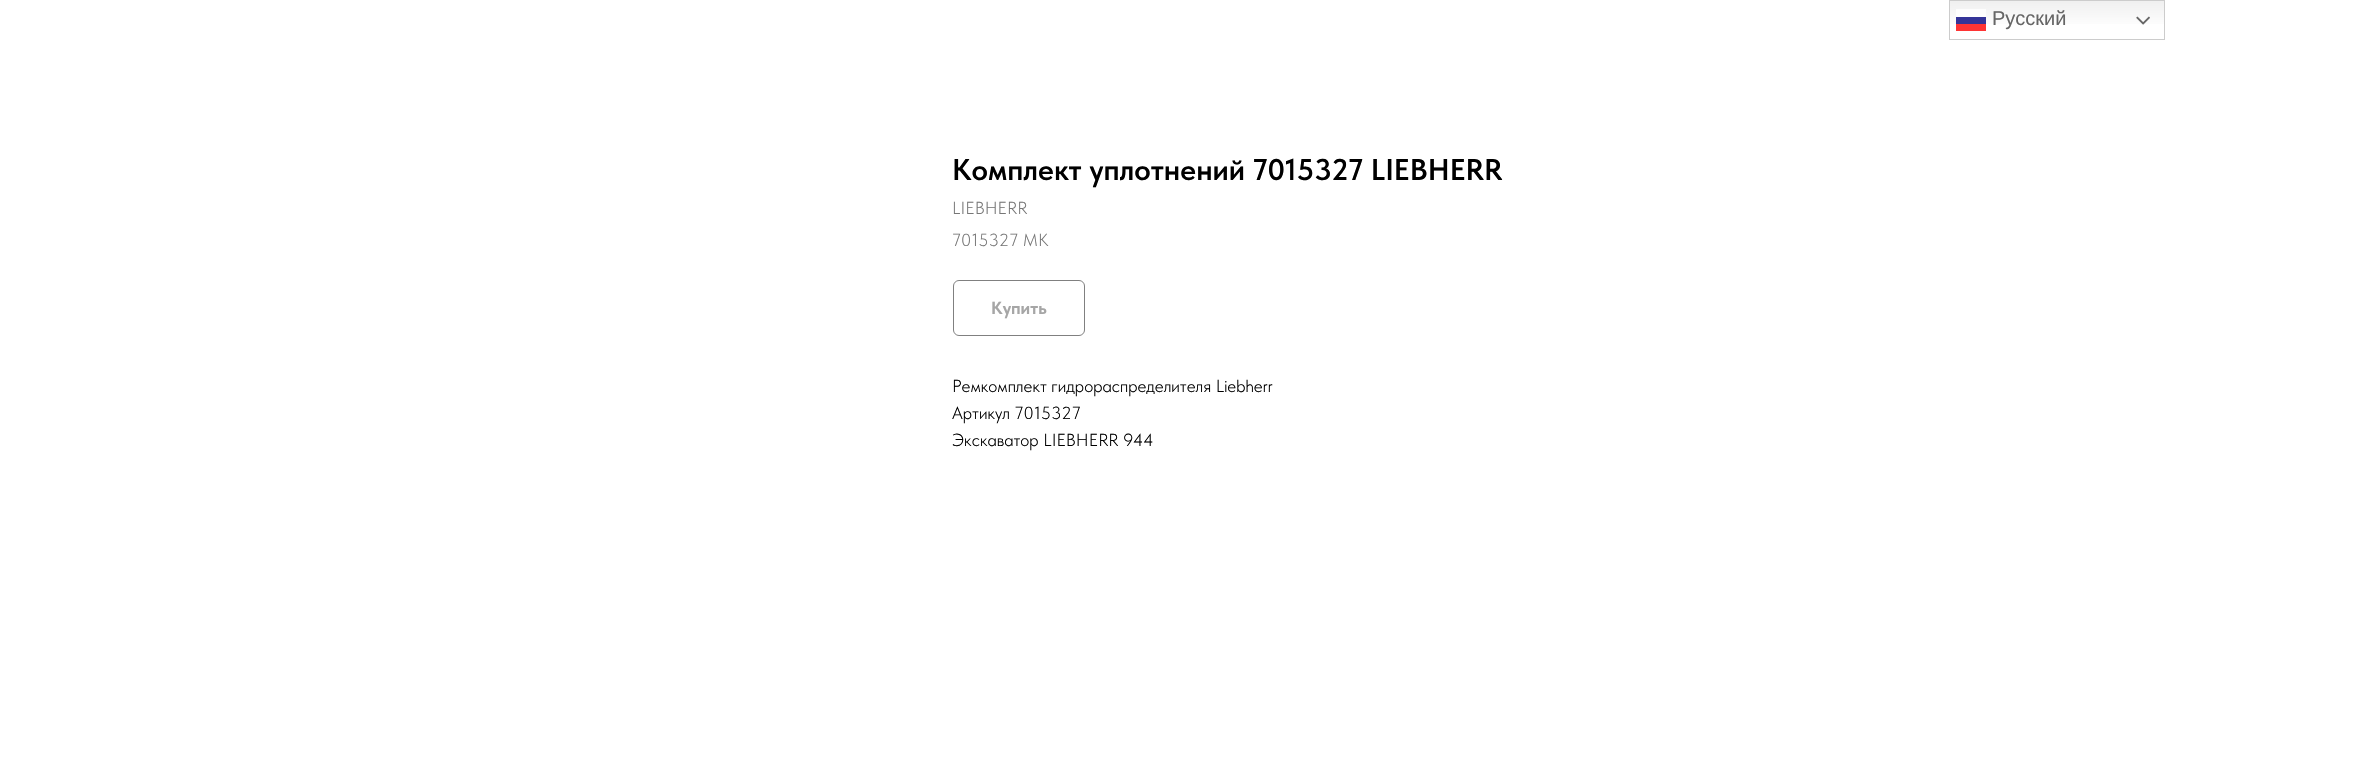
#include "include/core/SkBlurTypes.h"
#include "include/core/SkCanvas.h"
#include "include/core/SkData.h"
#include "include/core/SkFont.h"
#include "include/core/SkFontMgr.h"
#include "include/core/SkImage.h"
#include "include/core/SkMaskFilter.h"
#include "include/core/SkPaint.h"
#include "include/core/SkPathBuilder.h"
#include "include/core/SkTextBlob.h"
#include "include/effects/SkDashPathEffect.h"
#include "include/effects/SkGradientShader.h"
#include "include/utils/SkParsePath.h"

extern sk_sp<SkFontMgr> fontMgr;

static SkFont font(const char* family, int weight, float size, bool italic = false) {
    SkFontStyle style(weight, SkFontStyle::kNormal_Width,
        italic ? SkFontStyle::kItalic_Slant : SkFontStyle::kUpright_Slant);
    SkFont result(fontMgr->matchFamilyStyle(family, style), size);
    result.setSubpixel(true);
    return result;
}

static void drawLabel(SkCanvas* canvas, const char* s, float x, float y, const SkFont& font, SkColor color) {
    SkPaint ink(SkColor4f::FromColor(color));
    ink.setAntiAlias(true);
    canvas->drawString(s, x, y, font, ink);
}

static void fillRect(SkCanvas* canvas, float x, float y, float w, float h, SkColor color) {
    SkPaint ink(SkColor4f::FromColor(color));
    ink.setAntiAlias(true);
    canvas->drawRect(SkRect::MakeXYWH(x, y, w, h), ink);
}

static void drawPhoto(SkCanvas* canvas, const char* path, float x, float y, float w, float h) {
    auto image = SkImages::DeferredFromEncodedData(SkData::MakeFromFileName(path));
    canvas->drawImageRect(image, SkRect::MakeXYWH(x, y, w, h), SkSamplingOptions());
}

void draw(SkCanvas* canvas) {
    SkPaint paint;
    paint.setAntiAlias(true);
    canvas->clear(0xFFFFFFFF);
    {
        const SkColor colors[] = {0xFFEFEFEF, 0xFFFFFFFF};
        const float stops[] = {0, 0.7f};
        const SkPoint ends[] = {{2057, 0}, {2057, 40}};
        paint.setShader(SkGradientShader::MakeLinear(ends, colors, stops, 2, SkTileMode::kClamp));
        paint.setAlpha(255);
    }
    canvas->drawRect(SkRect::MakeXYWH(1950, 1, 214, 23), paint);
    {
        const SkColor colors[] = {0xFFFCFCFC, 0xFFFFFFFF};
        const float stops[] = {0, 0.7f};
        const SkPoint ends[] = {{2057, 0}, {2057, 40}};
        paint.setShader(SkGradientShader::MakeLinear(ends, colors, stops, 2, SkTileMode::kClamp));
        paint.setAlpha(255);
    }
    canvas->drawRect(SkRect::MakeXYWH(1956, 9, 30, 8), paint);
    paint.setStroke(true);
    paint.setStrokeWidth(1);
    paint.setShader(nullptr);
    paint.setColor(0xFFCCCCCC);
    canvas->drawRect(SkRect::MakeXYWH(1949.5f, 0.5f, 215, 39), paint);
    fillRect(canvas, 1956, 17, 30, 7, 0xFF343498);
    SkFont font1 = font("Liberation Sans", 400, 20);
    drawLabel(canvas, "Русский", 1992, 25, font1, 0xFF666666);
    drawPhoto(canvas, "assets/img1.png", 2136, 16, 14, 9);
    fillRect(canvas, 1956, 24, 30, 7, 0xFFFE3434);
    SkFont font2 = font("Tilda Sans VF", 600, 30);
    drawLabel(canvas, "Комплект уплотнений 7015327 LIEBHERR", 952, 180, font2, 0xFF000000);
    SkFont font3 = font("Tilda Sans VF", 300, 17.5f);
    drawLabel(canvas, "LIEBHERR", 952, 214, font3, 0xFF777777);
    drawLabel(canvas, "7015327 MK", 952, 246, font3, 0xFF777777);
    paint.setColor(0xFF808080);
    canvas->drawRoundRect(SkRect::MakeXYWH(953.5f, 280.5f, 131, 55), 5.5f, 5.5f, paint);
    SkFont font4 = font("Tilda Sans VF", 700, 17.5f);
    drawLabel(canvas, "Купить", 991, 314, font4, 0xFFA6A6A6);
    drawLabel(canvas, "Ремкомплект гидрораспределителя Liebherr", 952, 392, font3, 0xFF000000);
    drawLabel(canvas, "Артикул 7015327", 952, 419, font3, 0xFF000000);
    drawLabel(canvas, "Экскаватор LIEBHERR 944", 952, 446, font3, 0xFF000000);
}
